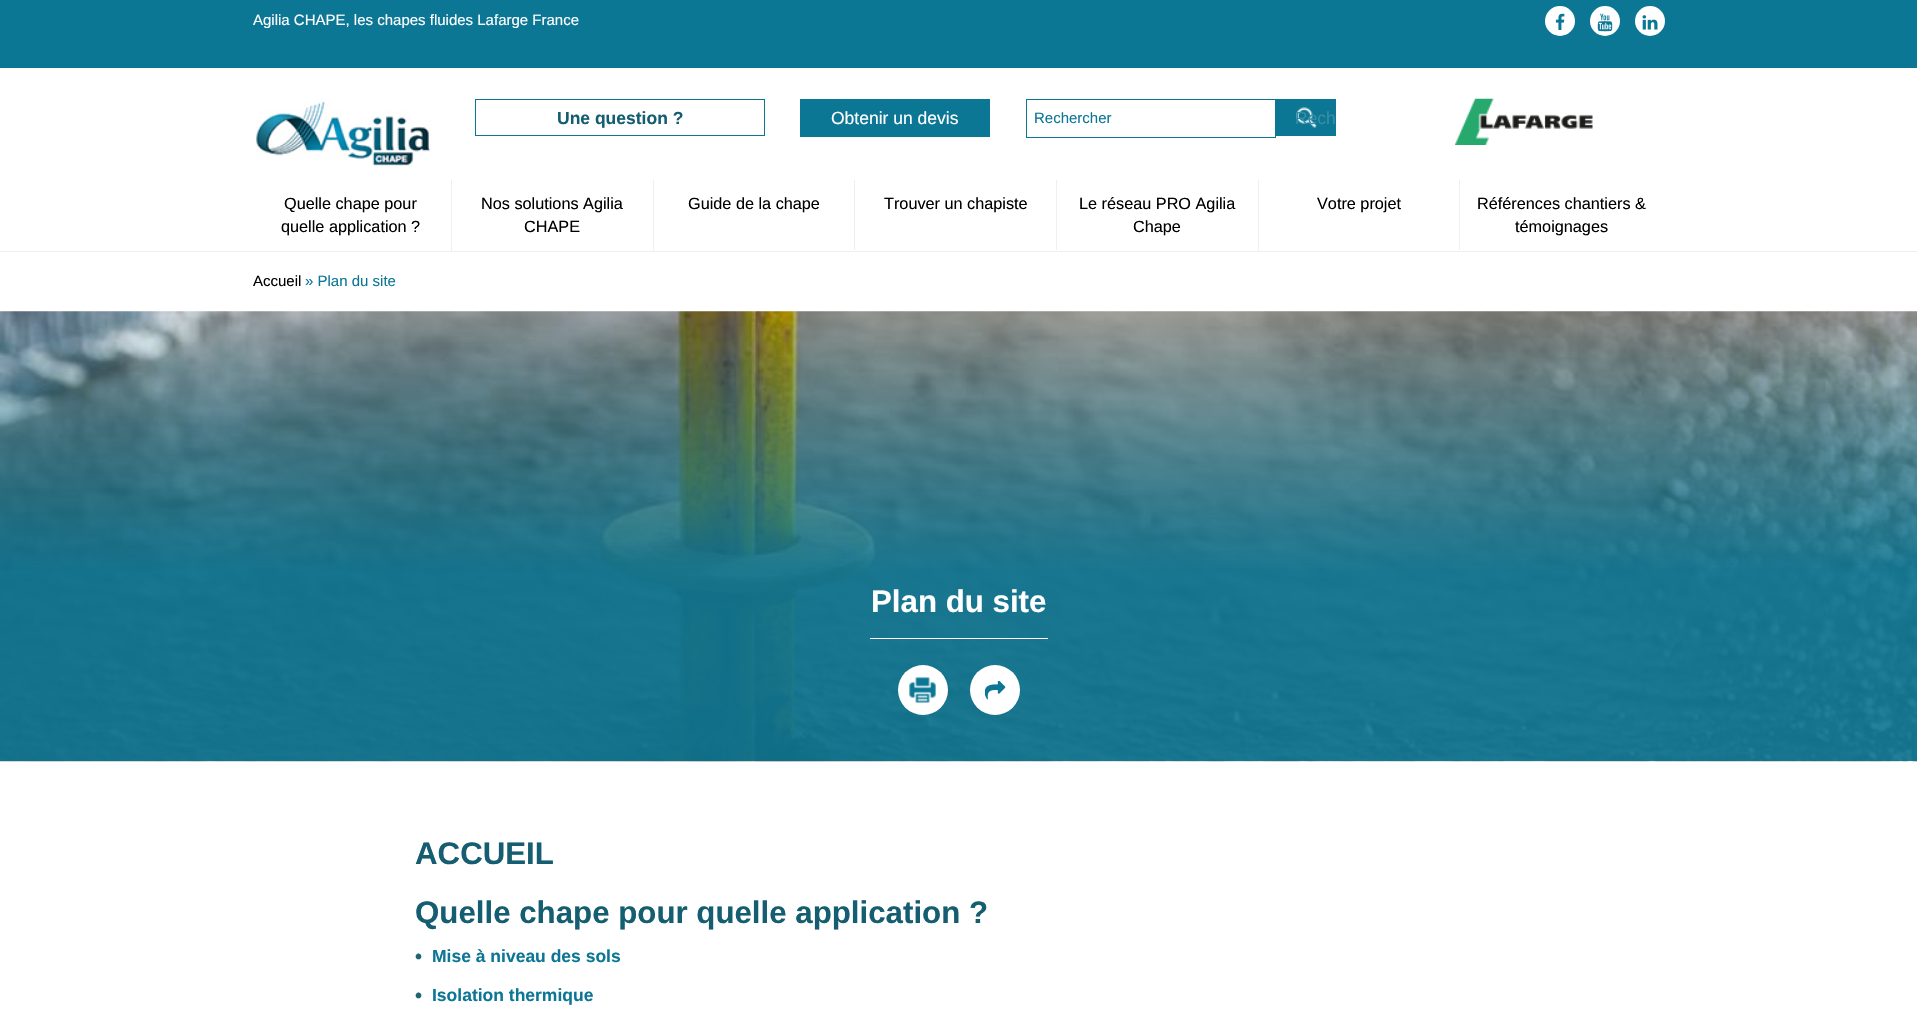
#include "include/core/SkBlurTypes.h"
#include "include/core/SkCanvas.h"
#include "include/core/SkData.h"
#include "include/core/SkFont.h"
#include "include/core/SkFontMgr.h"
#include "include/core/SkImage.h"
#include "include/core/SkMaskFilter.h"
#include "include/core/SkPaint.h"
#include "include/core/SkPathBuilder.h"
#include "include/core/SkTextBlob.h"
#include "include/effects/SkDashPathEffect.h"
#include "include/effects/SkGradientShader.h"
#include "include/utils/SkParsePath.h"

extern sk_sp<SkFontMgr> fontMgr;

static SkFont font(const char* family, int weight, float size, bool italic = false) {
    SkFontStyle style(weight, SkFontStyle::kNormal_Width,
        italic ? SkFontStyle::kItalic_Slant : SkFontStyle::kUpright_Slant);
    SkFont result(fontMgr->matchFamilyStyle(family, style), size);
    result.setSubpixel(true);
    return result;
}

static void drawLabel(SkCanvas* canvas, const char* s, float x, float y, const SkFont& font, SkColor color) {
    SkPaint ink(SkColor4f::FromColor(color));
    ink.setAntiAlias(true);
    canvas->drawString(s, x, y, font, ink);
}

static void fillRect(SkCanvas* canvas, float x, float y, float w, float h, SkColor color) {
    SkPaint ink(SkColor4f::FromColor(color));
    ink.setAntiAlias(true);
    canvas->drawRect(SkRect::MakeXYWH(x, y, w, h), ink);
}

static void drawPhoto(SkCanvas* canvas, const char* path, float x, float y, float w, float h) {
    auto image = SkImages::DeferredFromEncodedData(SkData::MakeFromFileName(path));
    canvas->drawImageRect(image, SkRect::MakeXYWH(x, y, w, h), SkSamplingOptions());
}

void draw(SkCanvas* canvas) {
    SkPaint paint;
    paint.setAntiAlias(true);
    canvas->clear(0xFFFFFFFF);
    fillRect(canvas, 0, 251, 1917, 1, 0xFFEFEFEF);
    fillRect(canvas, 0, 0, 1917, 68, 0xFF0C7795);
    SkFont font1 = font("Liberation Sans", 400, 15);
    drawLabel(canvas, "Agilia CHAPE, les chapes fluides Lafarge France", 253, 25, font1, 0xFFFFFFFF);
    paint.setColor(0xFFFFFFFF);
    canvas->drawCircle(1560, 21, 15, paint);
    drawPhoto(canvas, "assets/img1.png", 1555, 13, 10, 17);
    canvas->drawCircle(1605, 21, 15, paint);
    drawPhoto(canvas, "assets/img2.png", 1597, 13, 16, 19);
    canvas->drawCircle(1650, 21, 15, paint);
    drawPhoto(canvas, "assets/img3.png", 1642, 15, 16, 15);
    drawPhoto(canvas, "assets/img4.png", 256, 99, 175, 67);
    paint.setStroke(true);
    paint.setStrokeWidth(1);
    paint.setColor(0xFF0C7795);
    canvas->drawRect(SkRect::MakeXYWH(475.5f, 99.5f, 289, 36), paint);
    SkFont font2 = font("Liberation Sans", 700, 17.5f);
    drawLabel(canvas, "Une question ?", 557, 124, font2, 0xFF155D70);
    fillRect(canvas, 800, 99, 190, 38, 0xFF0C7795);
    SkFont font3 = font("Liberation Sans", 400, 17.5f);
    drawLabel(canvas, "Obtenir un devis", 831, 124, font3, 0xFFFFFFFF);
    canvas->drawRect(SkRect::MakeXYWH(1026.5f, 99.5f, 249, 38), paint);
    drawLabel(canvas, "Rechercher", 1034, 123, font1, 0xFF0C7795);
    fillRect(canvas, 1276, 99, 60, 37, 0xFF0C7795);
    drawPhoto(canvas, "assets/img5.png", 1296, 107, 21, 21);
    drawLabel(canvas, "Rech", 1295, 124, font3, 0xFF358EA7);
    drawPhoto(canvas, "assets/img6.png", 1455, 98, 138, 47);
    fillRect(canvas, 451, 180, 1, 71, 0xFFEFEFEF);
    SkFont font4 = font("Liberation Sans", 400, 16.25f);
    drawLabel(canvas, "Quelle chape pour", 284, 209, font4, 0xFF000000);
    drawLabel(canvas, "quelle application ?", 281, 232, font4, 0xFF000000);
    fillRect(canvas, 653, 180, 1, 71, 0xFFEFEFEF);
    drawLabel(canvas, "Nos solutions Agilia", 481, 209, font4, 0xFF000000);
    drawLabel(canvas, "CHAPE", 524, 232, font4, 0xFF000000);
    fillRect(canvas, 854, 180, 1, 70, 0xFFEFEFEF);
    drawLabel(canvas, "Guide de la chape", 688, 209, font4, 0xFF000000);
    fillRect(canvas, 1056, 180, 1, 70, 0xFFEFEFEF);
    drawLabel(canvas, "Trouver un chapiste", 884, 209, font4, 0xFF000000);
    fillRect(canvas, 1258, 180, 1, 71, 0xFFEFEFEF);
    drawLabel(canvas, "Le réseau PRO Agilia", 1079, 209, font4, 0xFF000000);
    drawLabel(canvas, "Chape", 1133, 232, font4, 0xFF000000);
    fillRect(canvas, 1459, 180, 1, 70, 0xFFEFEFEF);
    drawLabel(canvas, "Votre projet", 1317, 209, font4, 0xFF000000);
    drawLabel(canvas, "Références chantiers &", 1477, 209, font4, 0xFF000000);
    drawLabel(canvas, "témoignages", 1515, 232, font4, 0xFF000000);
    drawLabel(canvas, "Accueil", 253, 286, font1, 0xFF000000);
    drawLabel(canvas, "» Plan du site", 305, 286, font1, 0xFF0C7795);
    drawPhoto(canvas, "assets/img7.png", 0, 311, 1917, 451);
    paint.setStroke(false);
    {
        const SkColor colors[] = {0x000C7491, 0xA30C7491, 0xE60C7491};
        const float stops[] = {0, 0.41f, 0.58f};
        const SkPoint ends[] = {{959, 311}, {959, 761}};
        paint.setShader(SkGradientShader::MakeLinear(ends, colors, stops, 3, SkTileMode::kClamp));
        paint.setAlpha(255);
    }
    canvas->drawRect(SkRect::MakeXYWH(0, 317, 1917, 444), paint);
    SkFont font5 = font("Liberation Sans", 700, 31.25f);
    drawLabel(canvas, "Plan du site", 871, 612, font5, 0xFFFFFFFF);
    fillRect(canvas, 870, 638, 178, 1, 0xFFFFFFFF);
    paint.setShader(nullptr);
    paint.setColor(0xFFFFFFFF);
    canvas->drawCircle(923, 690, 25, paint);
    drawPhoto(canvas, "assets/img8.png", 909, 677, 27, 26);
    canvas->drawCircle(995, 690, 25, paint);
    drawPhoto(canvas, "assets/img9.png", 985, 681, 21, 19);
    drawLabel(canvas, "ACCUEIL", 415, 864, font5, 0xFF155D70);
    drawLabel(canvas, "Quelle chape pour quelle application ?", 415, 923, font5, 0xFF155D70);
    SkFont font6 = font("Liberation Sans", 700, 20);
    drawLabel(canvas, "•", 415, 963, font6, 0xFF1F6473);
    drawLabel(canvas, "Mise à niveau des sols", 432, 962, font2, 0xFF0C7795);
    drawLabel(canvas, "•", 415, 1002, font6, 0xFF1F6473);
    drawLabel(canvas, "Isolation thermique", 432, 1001, font2, 0xFF0C7795);
}
